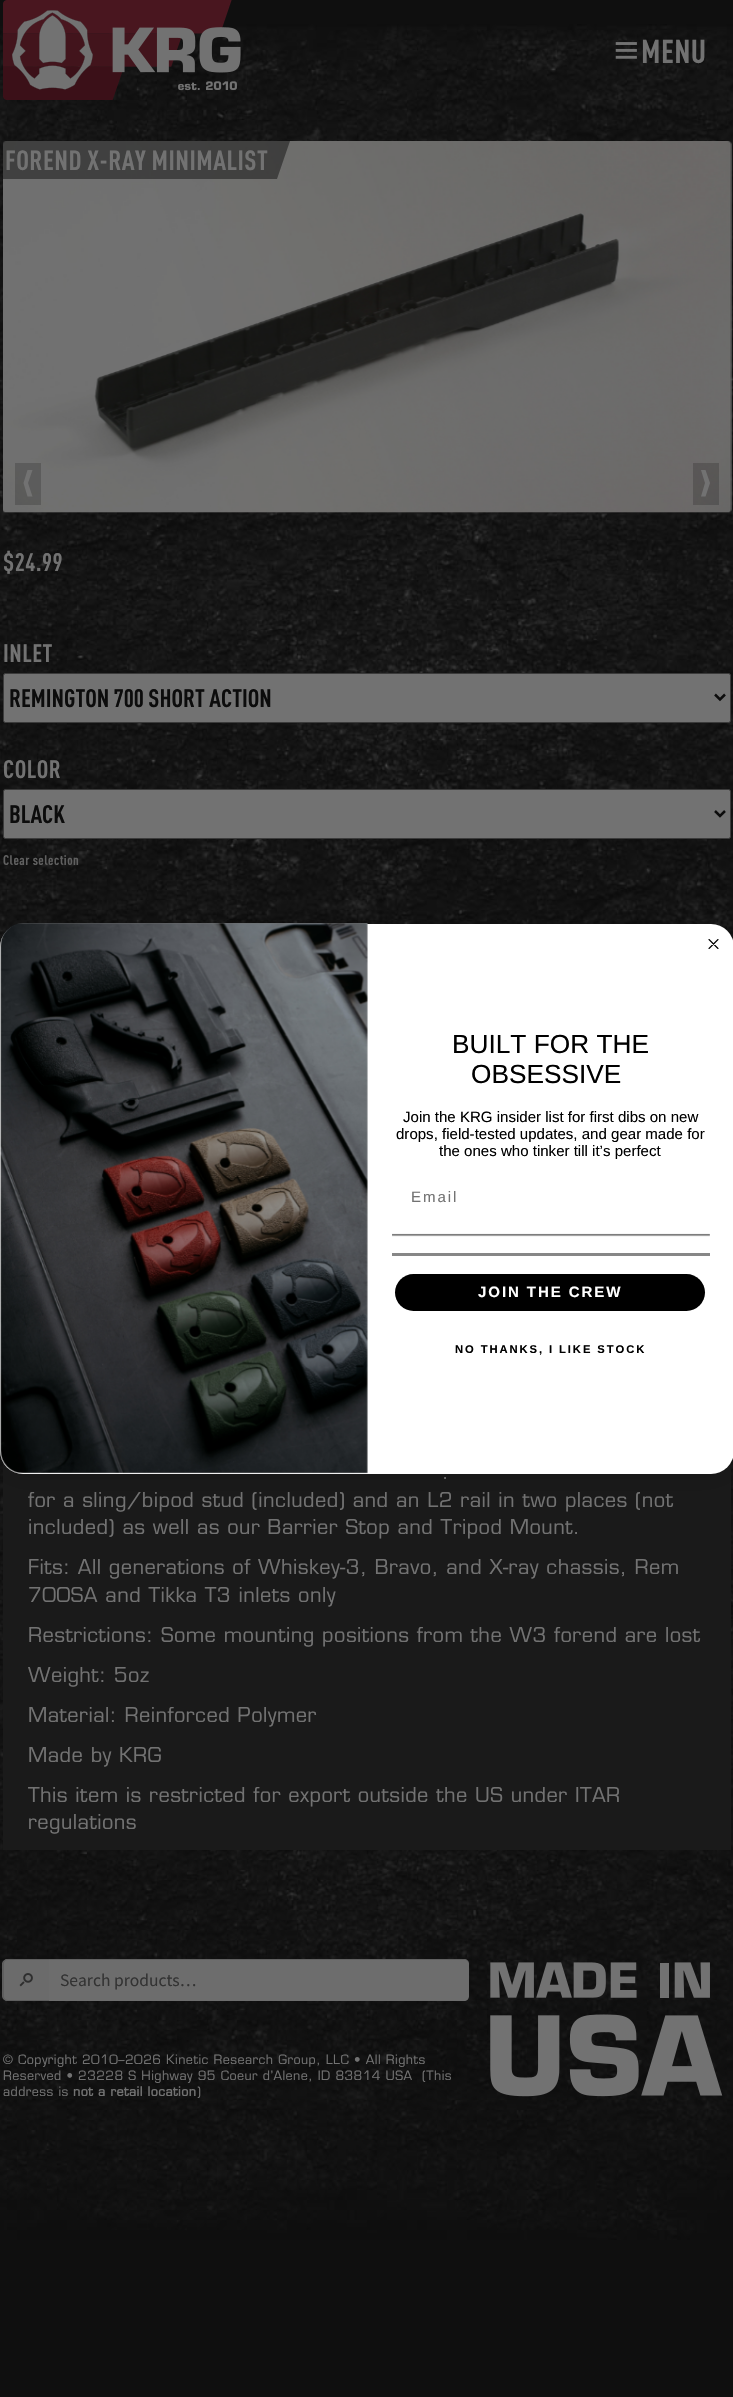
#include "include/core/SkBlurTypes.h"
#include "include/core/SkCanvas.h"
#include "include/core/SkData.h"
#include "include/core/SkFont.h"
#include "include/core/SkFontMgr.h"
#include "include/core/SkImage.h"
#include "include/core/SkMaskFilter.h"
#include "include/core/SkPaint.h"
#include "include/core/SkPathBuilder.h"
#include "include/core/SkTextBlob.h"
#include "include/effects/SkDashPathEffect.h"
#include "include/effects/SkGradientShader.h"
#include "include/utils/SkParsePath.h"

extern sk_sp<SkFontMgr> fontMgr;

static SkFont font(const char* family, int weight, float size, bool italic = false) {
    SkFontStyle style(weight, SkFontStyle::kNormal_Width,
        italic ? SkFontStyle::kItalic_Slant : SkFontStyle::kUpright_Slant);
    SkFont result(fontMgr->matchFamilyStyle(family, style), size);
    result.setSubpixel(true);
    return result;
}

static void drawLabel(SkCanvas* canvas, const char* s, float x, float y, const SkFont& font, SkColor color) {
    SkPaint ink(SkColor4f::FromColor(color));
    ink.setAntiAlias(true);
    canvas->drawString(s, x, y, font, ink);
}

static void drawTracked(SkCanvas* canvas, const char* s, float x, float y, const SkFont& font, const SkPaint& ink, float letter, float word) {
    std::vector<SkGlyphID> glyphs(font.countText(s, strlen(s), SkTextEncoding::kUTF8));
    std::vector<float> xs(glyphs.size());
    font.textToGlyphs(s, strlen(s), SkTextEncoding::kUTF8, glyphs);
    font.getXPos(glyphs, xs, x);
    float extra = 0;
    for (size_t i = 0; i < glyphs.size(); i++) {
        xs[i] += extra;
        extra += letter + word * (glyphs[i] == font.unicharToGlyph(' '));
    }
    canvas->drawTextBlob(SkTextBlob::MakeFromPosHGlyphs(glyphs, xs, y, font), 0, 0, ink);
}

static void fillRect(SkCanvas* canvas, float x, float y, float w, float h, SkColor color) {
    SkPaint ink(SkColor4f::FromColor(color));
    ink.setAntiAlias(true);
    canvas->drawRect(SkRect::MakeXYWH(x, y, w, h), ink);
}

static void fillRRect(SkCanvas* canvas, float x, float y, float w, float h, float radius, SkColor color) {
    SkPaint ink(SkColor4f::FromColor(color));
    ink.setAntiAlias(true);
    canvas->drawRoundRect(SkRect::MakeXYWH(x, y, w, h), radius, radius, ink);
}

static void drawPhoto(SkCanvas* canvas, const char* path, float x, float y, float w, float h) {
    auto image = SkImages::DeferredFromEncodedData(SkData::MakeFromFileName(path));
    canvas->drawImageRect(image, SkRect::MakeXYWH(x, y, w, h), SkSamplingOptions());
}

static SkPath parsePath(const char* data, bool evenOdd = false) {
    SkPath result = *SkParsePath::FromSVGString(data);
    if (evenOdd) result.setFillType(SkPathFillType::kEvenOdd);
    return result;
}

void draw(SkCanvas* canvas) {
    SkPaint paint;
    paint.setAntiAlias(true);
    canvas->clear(0xFF0F0F0F);
    drawPhoto(canvas, "assets/img1.png", 0, 24, 733, 2216);
    drawPhoto(canvas, "assets/img2.png", 3, 0, 238, 100);
    drawPhoto(canvas, "assets/img3.png", 615, 42, 22, 17);
    SkFont font1 = font("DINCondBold", 700, 32.5f);
    paint.setColor(0xFF727272);
    drawTracked(canvas, "MENU", 641, 63, font1, paint, 0.45f, 0);
    drawPhoto(canvas, "assets/img4.png", 3, 141, 729, 372);
    fillRect(canvas, 15, 463, 26, 42, 0x330C0C0C);
    canvas->drawPath(parsePath("M32.5 496.5L28 483L32.5 470H27.5L23.5 483L27.5 496.5Z"), paint);
    fillRect(canvas, 693, 463, 26, 42, 0x330C0C0C);
    canvas->drawPath(parsePath("M701 496.5L705 483L701 470H705.5L710 483L705.5 496.5Z"), paint);
    canvas->save();
    canvas->clipRect(SkRect::MakeXYWH(3, 141, 293, 38));
    paint.setColor(0x80101010);
    canvas->drawPath(parsePath("M-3 141H290L277 179H-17Z"), paint);
    canvas->restore();
    SkFont font2 = font("DINCondBold", 700, 27.5f);
    paint.setColor(0xFF727272);
    drawTracked(canvas, "FOREND X-RAY MINIMALIST", 5, 170, font2, paint, 0.45f, 0);
    SkFont font3 = font("DINCondBold", 700, 25);
    drawTracked(canvas, "$24.99", 3, 571, font3, paint, 0.45f, 0);
    drawTracked(canvas, "INLET", 3, 662, font3, paint, 0.45f, 0);
    canvas->drawRoundRect(SkRect::MakeXYWH(3.5f, 673.5f, 727, 49), 2, 2, paint);
    paint.setStroke(true);
    paint.setStrokeWidth(1);
    paint.setColor(0xFF3B3B3B);
    canvas->drawRoundRect(SkRect::MakeXYWH(3.5f, 673.5f, 727, 49), 2, 2, paint);
    paint.setStrokeWidth(2.5f);
    paint.setColor(0xFF0C0C0C);
    canvas->drawPath(parsePath("M715 694.5L720 699.5L725 694.5"), paint);
    drawLabel(canvas, "REMINGTON 700 SHORT ACTION", 9, 707, font3, 0xFF0C0C0C);
    paint.setStroke(false);
    paint.setColor(0xFF727272);
    drawTracked(canvas, "COLOR", 3, 778, font3, paint, 0.45f, 0);
    canvas->drawRoundRect(SkRect::MakeXYWH(3.5f, 789.5f, 727, 49), 2, 2, paint);
    paint.setStroke(true);
    paint.setStrokeWidth(1);
    paint.setColor(0xFF3B3B3B);
    canvas->drawRoundRect(SkRect::MakeXYWH(3.5f, 789.5f, 727, 49), 2, 2, paint);
    paint.setStrokeWidth(2.5f);
    paint.setColor(0xFF0C0C0C);
    canvas->drawPath(parsePath("M715 811L720 816L725 811"), paint);
    drawLabel(canvas, "BLACK", 9, 823, font3, 0xFF0C0C0C);
    SkFont font4 = font("DINCondBold", 700, 13.75f);
    paint.setStroke(false);
    paint.setColor(0xFF606060);
    drawTracked(canvas, "Clear selection", 3, 865, font4, paint, 0.45f, 0);
    fillRect(canvas, 3, 1462, 728, 388, 0xFF1A1A1A);
    SkFont font5 = font("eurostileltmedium", 500, 20);
    paint.setColor(0xFF727272);
    drawTracked(canvas, ".", 442, 1479, font5, paint, 0.45f, 0);
    drawTracked(canvas, "for a sling/bipod stud (included) and an L2 rail in two places (not", 28, 1507, font5, paint, 0.45f, 0);
    drawTracked(canvas, "included) as well as our Barrier Stop and Tripod Mount.", 28, 1534, font5, paint, 0.45f, 0);
    drawTracked(canvas, "Fits: All generations of Whiskey-3, Bravo, and X-ray chassis, Rem", 28, 1574, font5, paint, 0.45f, 0);
    drawTracked(canvas, "700SA and Tikka T3 inlets only", 28, 1602, font5, paint, 0.45f, 0);
    drawTracked(canvas, "Restrictions: Some mounting positions from the W3 forend are lost", 28, 1642, font5, paint, 0.45f, 0);
    drawTracked(canvas, "Weight: 5oz", 28, 1682, font5, paint, 0.45f, 0);
    drawTracked(canvas, "Material: Reinforced Polymer", 28, 1722, font5, paint, 0.45f, 0);
    drawTracked(canvas, "Made by KRG", 28, 1762, font5, paint, 0.45f, 0);
    drawTracked(canvas, "This item is restricted for export outside the US under ITAR", 28, 1802, font5, paint, 0.45f, 0);
    drawTracked(canvas, "regulations", 28, 1829, font5, paint, 0.45f, 0);
    paint.setColor(0xFF6B6B6B);
    canvas->drawPath(parsePath("M8 1959H49V2001H8C5 2001 3 1999 3 1996V1964C3 1961 5 1959 8 1959Z"), paint);
    paint.setColor(0xFF5E5E5E);
    canvas->drawPath(parsePath("M8 1959H49V2001H8C5 2001 2 1999 2 1996V1964C2 1961 5 1959 8 1959ZM8 1960H49V2000H8C5 2000 4 1998 4 1996V1964C4 1962 5 1960 8 1960Z", true), paint);
    drawPhoto(canvas, "assets/img5.png", 19, 1973, 14, 14);
    paint.setColor(0xFF6D6D6D);
    canvas->drawPath(parsePath("M49 1959H464C467 1959 469 1961 469 1964V1996C469 1999 467 2001 464 2001H49Z"), paint);
    paint.setColor(0x1F0C0C0C);
    canvas->drawPath(parsePath("M49 1960H464C467 1960 469 1962 469 1965C469 1962 467 1959 464 1959H49Z"), paint);
    SkFont font6 = font("Source Sans Pro", 400, 17.5f);
    drawLabel(canvas, "Search products…", 60, 1986, font6, 0xFF333333);
    drawPhoto(canvas, "assets/img6.png", 490, 1962, 233, 135);
    SkFont font7 = font("eurostileltmedium", 500, 12.5f);
    paint.setColor(0xFF727272);
    drawTracked(canvas, "© Copyright 2010–2026 Kinetic Research Group, LLC • All Rights", 3, 2064, font7, paint, 0.45f, 0);
    drawTracked(canvas, "Reserved • 23228 S Highway 95 Coeur d’Alene, ID 83814 USA", 3, 2080, font7, paint, 0.45f, 0);
    drawTracked(canvas, "(This", 422, 2080, font7, paint, 0.45f, 0);
    drawTracked(canvas, "address is", 3, 2096, font7, paint, 0.45f, 0);
    SkFont font8 = font("eurostileltmedium", 700, 12.5f);
    drawTracked(canvas, "not a retail location", 73, 2096, font8, paint, 0.45f, 0);
    drawTracked(canvas, ")", 197, 2096, font7, paint, 0.45f, 0);
    paint.setColor(0x26000000);
    paint.setMaskFilter(SkMaskFilter::MakeBlur(kNormal_SkBlurStyle, 14));
    canvas->drawRoundRect(SkRect::MakeXYWH(0, 924, 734, 550), 23, 23, paint);
    paint.setMaskFilter(nullptr);
    fillRRect(canvas, 0, 924, 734, 550, 23, 0xFFFFFFFF);
    paint.setStroke(true);
    paint.setStrokeWidth(1.1f);
    paint.setStrokeCap(SkPaint::kRound_Cap);
    paint.setStrokeJoin(SkPaint::kRound_Join);
    paint.setColor(0xFF000000);
    canvas->drawPath(parsePath("M709 939.5L718 948.5M709 948.5L718 939.5Z"), paint);
    drawPhoto(canvas, "assets/img7.png", 0, 923, 368, 551);
    SkFont font9 = font("Liberation Sans", 400, 26.25f);
    drawLabel(canvas, "BUILT FOR THE", 452, 1053, font9, 0xFF000000);
    drawLabel(canvas, "OBSESSIVE", 471, 1083, font9, 0xFF000000);
    SkFont font10 = font("Liberation Sans", 400, 15.05f);
    drawLabel(canvas, "Join the KRG insider list for first dibs on new", 403, 1122, font10, 0xFF000000);
    drawLabel(canvas, "drops, field-tested updates, and gear made for", 396, 1139, font10, 0xFF000000);
    drawLabel(canvas, "the ones who tinker till it’s perfect", 439, 1156, font10, 0xFF000000);
    paint.setStroke(false);
    paint.setColor(0xFF727272);
    drawTracked(canvas, "Email", 411, 1202, font10, paint, 1.9f, 0);
    drawPhoto(canvas, "assets/img8.png", 392, 1233, 318, 4);
    fillRect(canvas, 392, 1253, 318, 3, 0xFF878787);
    fillRRect(canvas, 395, 1274, 310, 37, 18.5f, 0xFF000000);
    SkFont font11 = font("Liberation Sans", 700, 15.05f);
    paint.setColor(0xFFFFFFFF);
    drawTracked(canvas, "JOIN THE CREW", 478, 1297, font11, paint, 1.9f, 0);
    SkFont font12 = font("Liberation Sans", 700, 11.25f);
    paint.setColor(0xFF000000);
    drawTracked(canvas, "NO THANKS, I LIKE STOCK", 455, 1353, font12, paint, 1.9f, 0);
}
